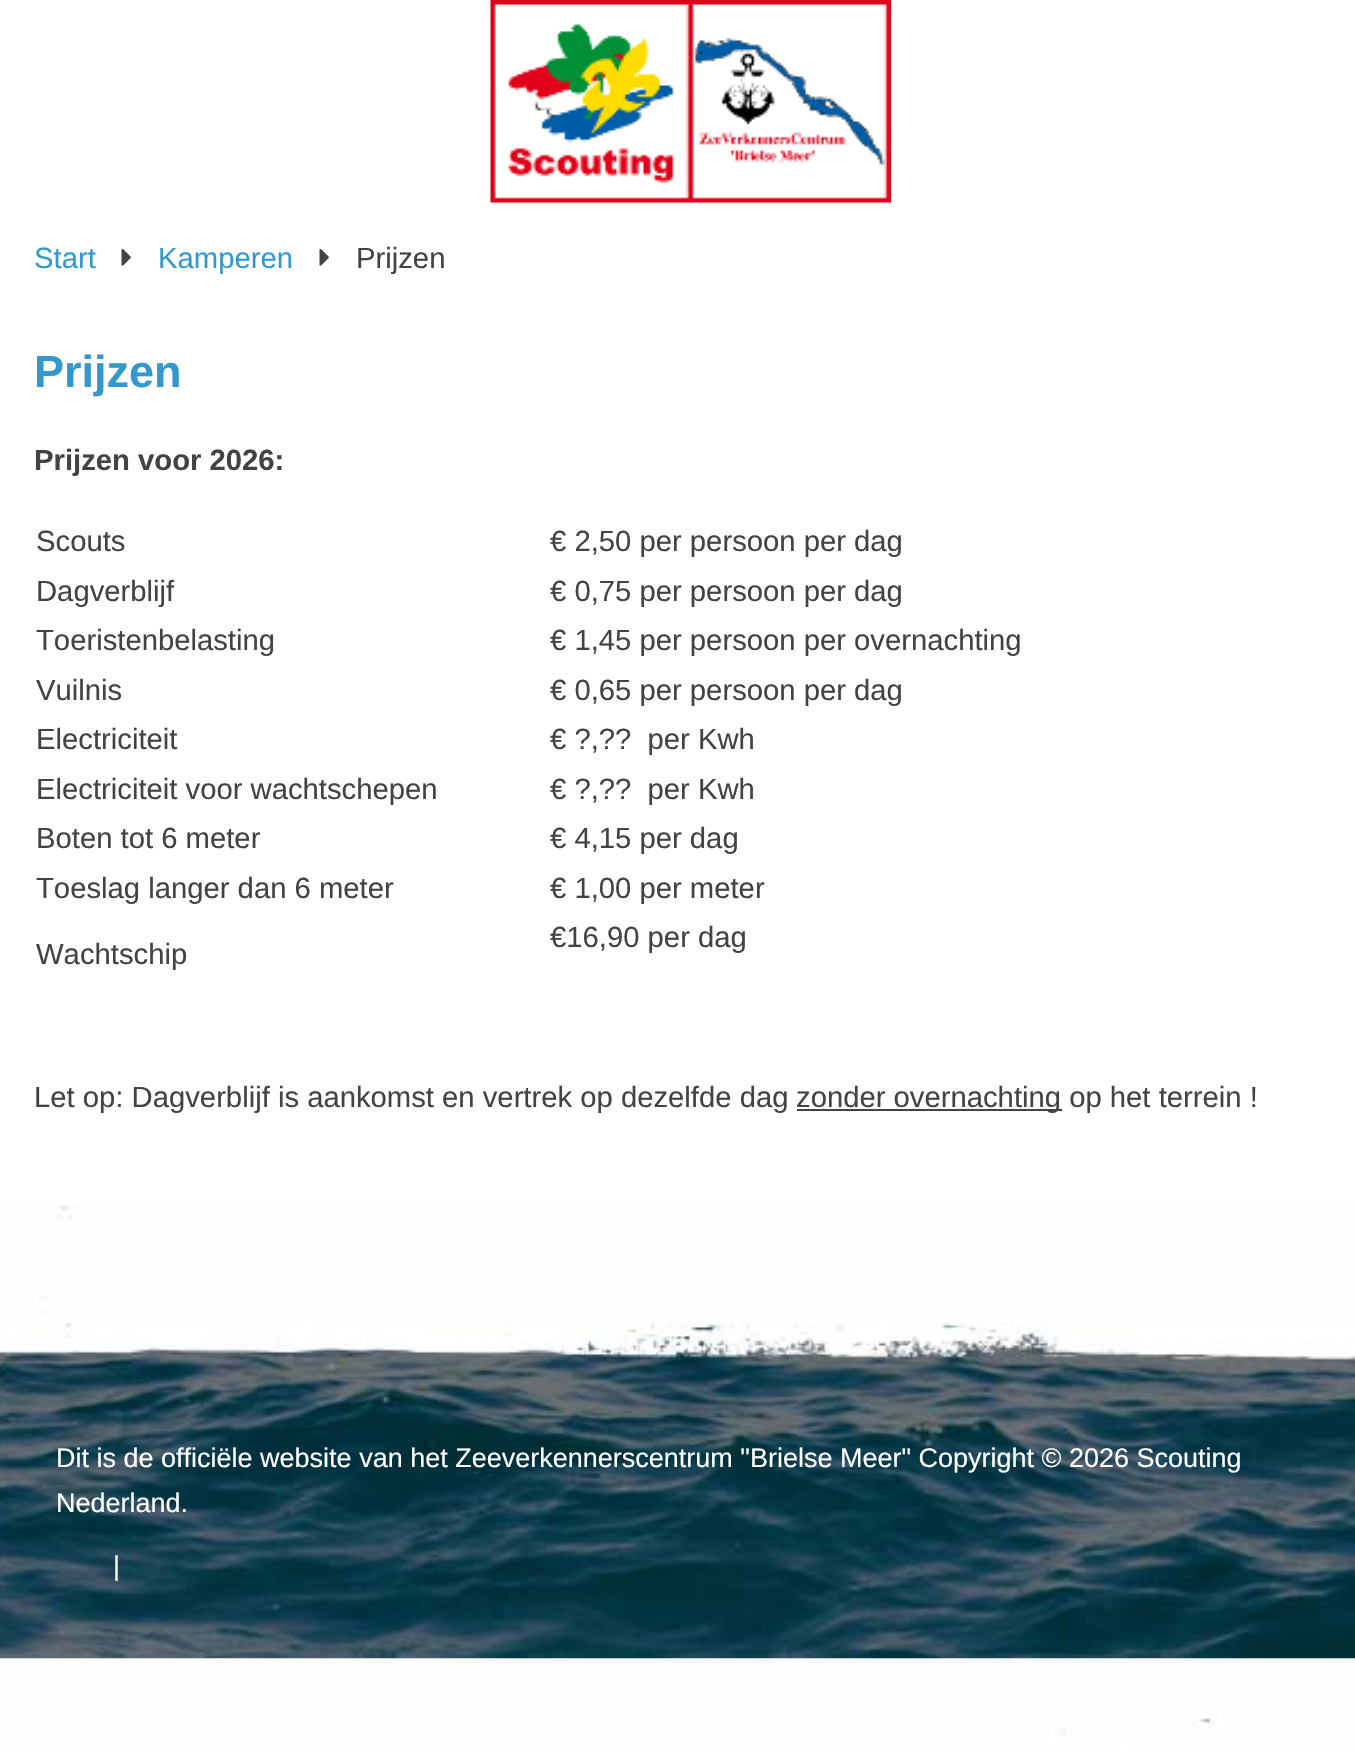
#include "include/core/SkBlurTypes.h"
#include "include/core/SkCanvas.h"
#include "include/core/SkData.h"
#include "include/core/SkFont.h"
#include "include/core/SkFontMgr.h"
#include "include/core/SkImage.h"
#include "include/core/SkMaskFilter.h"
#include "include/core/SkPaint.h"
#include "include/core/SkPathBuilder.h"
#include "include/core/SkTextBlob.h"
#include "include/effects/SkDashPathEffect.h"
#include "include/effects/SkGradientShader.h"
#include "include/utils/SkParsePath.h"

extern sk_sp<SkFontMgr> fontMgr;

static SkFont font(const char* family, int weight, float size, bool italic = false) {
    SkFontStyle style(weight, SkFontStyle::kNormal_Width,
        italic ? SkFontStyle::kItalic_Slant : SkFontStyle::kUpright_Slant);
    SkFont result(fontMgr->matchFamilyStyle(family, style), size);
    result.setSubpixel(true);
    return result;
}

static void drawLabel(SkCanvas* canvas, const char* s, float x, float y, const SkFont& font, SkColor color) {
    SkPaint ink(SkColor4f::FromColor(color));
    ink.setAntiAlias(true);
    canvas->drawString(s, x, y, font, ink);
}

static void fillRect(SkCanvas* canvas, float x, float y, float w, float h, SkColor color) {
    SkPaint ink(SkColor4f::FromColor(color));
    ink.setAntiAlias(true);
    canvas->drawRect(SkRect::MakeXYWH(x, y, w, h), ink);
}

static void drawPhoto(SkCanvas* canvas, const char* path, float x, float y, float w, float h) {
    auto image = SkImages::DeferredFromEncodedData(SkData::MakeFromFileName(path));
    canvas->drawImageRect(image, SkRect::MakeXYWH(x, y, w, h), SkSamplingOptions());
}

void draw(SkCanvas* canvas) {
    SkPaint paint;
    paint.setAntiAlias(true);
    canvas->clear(0xFFFFFFFF);
    drawPhoto(canvas, "assets/img1.png", 0, 1205, 1355, 546);
    drawPhoto(canvas, "assets/img2.png", 490, 0, 401, 203);
    SkFont font1 = font("Liberation Sans", 400, 29.25f);
    drawLabel(canvas, "Start", 34, 268, font1, 0xFF3399CC);
    drawPhoto(canvas, "assets/img3.png", 121, 249, 10, 17);
    drawLabel(canvas, "Kamperen", 158, 268, font1, 0xFF3399CC);
    drawPhoto(canvas, "assets/img3.png", 319, 249, 10, 17);
    drawLabel(canvas, "Prijzen", 356, 268, font1, 0xFF434343);
    SkFont font2 = font("Liberation Sans", 700, 45);
    drawLabel(canvas, "Prijzen", 34, 387, font2, 0xFF3399CC);
    SkFont font3 = font("Liberation Sans", 700, 29.25f);
    drawLabel(canvas, "Prijzen voor 2026:", 34, 470, font3, 0xFF434343);
    drawLabel(canvas, "Scouts", 36, 551, font1, 0xFF434343);
    drawLabel(canvas, "€ 2,50 per persoon per dag", 550, 551, font1, 0xFF434343);
    drawLabel(canvas, "Dagverblijf", 36, 601, font1, 0xFF434343);
    drawLabel(canvas, "€ 0,75 per persoon per dag", 550, 601, font1, 0xFF434343);
    drawLabel(canvas, "Toeristenbelasting", 36, 650, font1, 0xFF434343);
    drawLabel(canvas, "€ 1,45 per persoon per overnachting", 550, 650, font1, 0xFF434343);
    drawLabel(canvas, "Vuilnis", 36, 700, font1, 0xFF434343);
    drawLabel(canvas, "€ 0,65 per persoon per dag", 550, 700, font1, 0xFF434343);
    drawLabel(canvas, "Electriciteit", 36, 749, font1, 0xFF434343);
    drawLabel(canvas, "€ ?,?\077  per Kwh", 550, 749, font1, 0xFF434343);
    drawLabel(canvas, "Electriciteit voor wachtschepen", 36, 799, font1, 0xFF434343);
    drawLabel(canvas, "€ ?,?\077  per Kwh", 550, 799, font1, 0xFF434343);
    drawLabel(canvas, "Boten tot 6 meter", 36, 848, font1, 0xFF434343);
    drawLabel(canvas, "€ 4,15 per dag", 550, 848, font1, 0xFF434343);
    drawLabel(canvas, "Toeslag langer dan 6 meter", 36, 898, font1, 0xFF434343);
    drawLabel(canvas, "€ 1,00 per meter", 550, 898, font1, 0xFF434343);
    drawLabel(canvas, "Wachtschip", 36, 964, font1, 0xFF434343);
    drawLabel(canvas, "€16,90 per dag", 550, 947, font1, 0xFF434343);
    drawLabel(canvas, "Let op: Dagverblijf is aankomst en vertrek op dezelfde dag", 34, 1107, font1, 0xFF434343);
    fillRect(canvas, 797, 1109, 265, 2, 0xFF434343);
    drawLabel(canvas, "zonder overnachting op het terrein !", 796, 1107, font1, 0xFF434343);
    drawPhoto(canvas, "assets/img4.png", 0, 1323, 1355, 336);
    SkFont font4 = font("Liberation Sans", 400, 27);
    drawLabel(canvas, "Dit is de officiële website van het Zeeverkennerscentrum \"Brielse Meer\" Copyright © 2026 Scouting", 56, 1467, font4, 0xFFFFFFFF);
    drawLabel(canvas, "Nederland.", 56, 1512, font4, 0xFFFFFFFF);
    drawLabel(canvas, "|", 113, 1575, font4, 0xFFFFFFFF);
}
